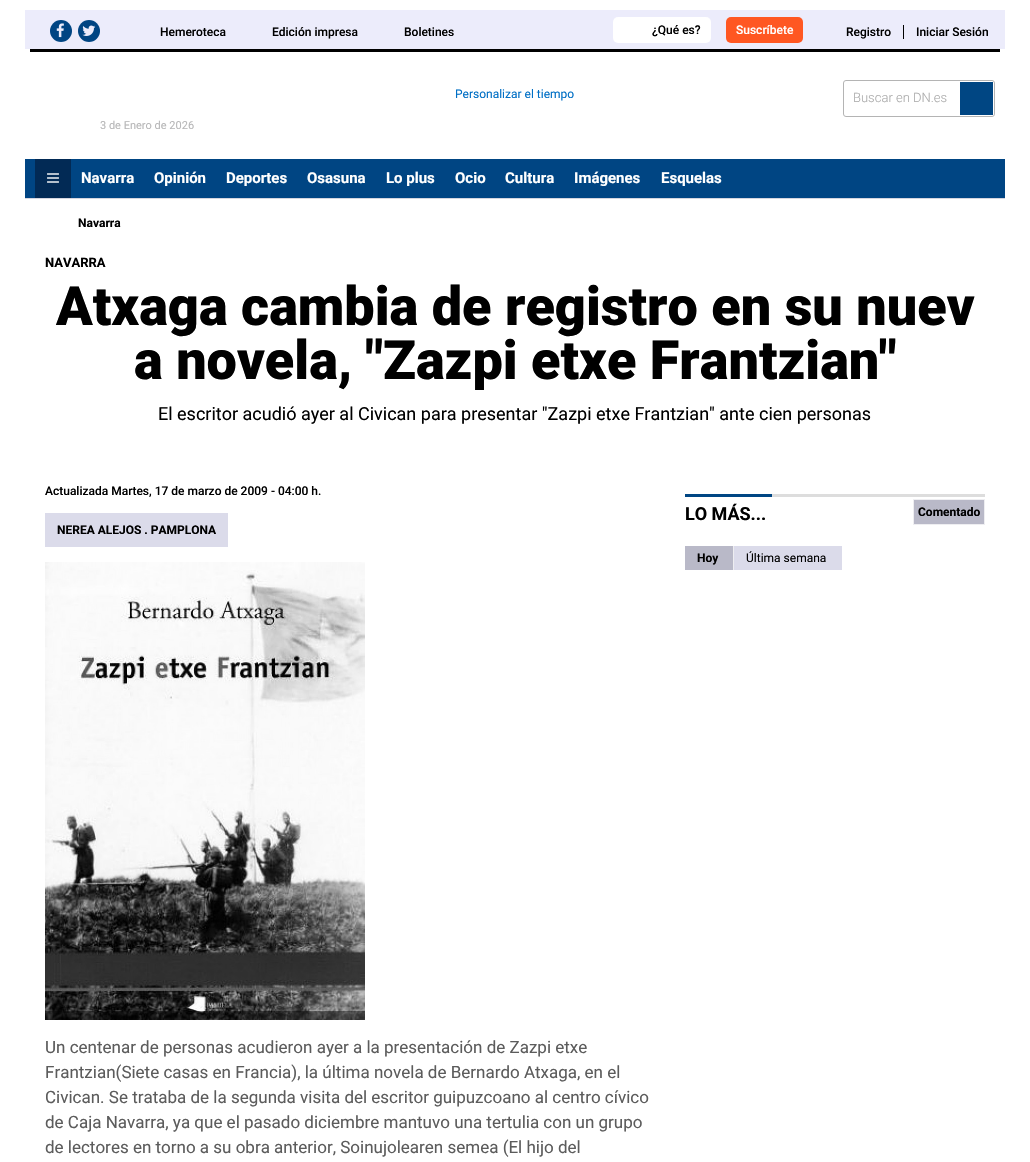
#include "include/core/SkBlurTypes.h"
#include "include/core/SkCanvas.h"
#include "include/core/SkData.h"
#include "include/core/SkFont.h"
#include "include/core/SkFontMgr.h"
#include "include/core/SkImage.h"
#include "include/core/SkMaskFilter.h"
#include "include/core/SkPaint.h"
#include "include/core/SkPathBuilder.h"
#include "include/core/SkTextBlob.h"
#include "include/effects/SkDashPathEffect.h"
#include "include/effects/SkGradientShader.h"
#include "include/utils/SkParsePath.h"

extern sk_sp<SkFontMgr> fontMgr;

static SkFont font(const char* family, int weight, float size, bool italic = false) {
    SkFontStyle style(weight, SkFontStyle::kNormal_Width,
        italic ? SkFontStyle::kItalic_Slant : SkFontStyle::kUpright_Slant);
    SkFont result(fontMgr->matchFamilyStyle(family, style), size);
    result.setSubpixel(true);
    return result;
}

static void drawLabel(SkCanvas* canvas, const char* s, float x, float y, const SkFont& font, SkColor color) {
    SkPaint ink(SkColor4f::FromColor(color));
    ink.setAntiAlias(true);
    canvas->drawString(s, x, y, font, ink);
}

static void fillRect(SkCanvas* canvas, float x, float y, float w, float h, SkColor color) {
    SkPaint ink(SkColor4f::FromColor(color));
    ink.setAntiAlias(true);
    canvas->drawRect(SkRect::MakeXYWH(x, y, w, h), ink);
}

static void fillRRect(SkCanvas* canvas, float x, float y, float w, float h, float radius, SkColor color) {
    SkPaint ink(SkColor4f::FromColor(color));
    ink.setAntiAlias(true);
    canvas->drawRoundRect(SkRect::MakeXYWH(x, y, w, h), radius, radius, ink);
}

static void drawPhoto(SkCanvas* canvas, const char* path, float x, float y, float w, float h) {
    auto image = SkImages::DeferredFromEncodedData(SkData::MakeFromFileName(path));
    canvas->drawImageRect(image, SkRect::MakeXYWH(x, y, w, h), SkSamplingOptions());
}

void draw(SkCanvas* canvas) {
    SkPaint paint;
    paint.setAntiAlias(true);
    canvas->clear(0xFFFFFFFF);
    fillRect(canvas, 25, 10, 980, 39, 0xFFECECFB);
    paint.setColor(0xFF004583);
    canvas->drawCircle(61, 31, 11, paint);
    drawPhoto(canvas, "assets/img1.png", 56, 23, 8, 15);
    canvas->drawCircle(89, 31, 11, paint);
    drawPhoto(canvas, "assets/img2.png", 82, 25, 14, 11);
    SkFont font1 = font("Roboto", 500, 12);
    drawLabel(canvas, "Hemeroteca", 160, 36, font1, 0xFF000000);
    drawLabel(canvas, "Edición impresa", 272, 36, font1, 0xFF000000);
    drawLabel(canvas, "Boletines", 404, 36, font1, 0xFF000000);
    fillRRect(canvas, 613, 17, 98, 26, 5, 0xFFFFFFFF);
    drawLabel(canvas, "¿Qué es?", 652, 34, font1, 0xFF000000);
    fillRRect(canvas, 726, 17, 77, 26, 5, 0xFFFF5722);
    drawLabel(canvas, "Suscríbete", 736, 34, font1, 0xFFFFFFFF);
    drawLabel(canvas, "Registro", 846, 36, font1, 0xFF000000);
    fillRect(canvas, 903, 25, 1, 14, 0xFF000000);
    drawLabel(canvas, "Iniciar Sesión", 916, 36, font1, 0xFF000000);
    fillRect(canvas, 30, 49, 970, 3, 0xFF000000);
    SkFont font2 = font("Roboto", 400, 12);
    drawLabel(canvas, "Personalizar el tiempo", 455, 98, font2, 0xFF006FC5);
    SkFont font3 = font("Roboto", 400, 11);
    drawLabel(canvas, "3 de Enero de 2026", 100, 129, font3, 0xFFB7B7B8);
    paint.setStroke(true);
    paint.setStrokeWidth(1);
    paint.setColor(0xFFB4B4B4);
    canvas->drawRoundRect(SkRect::MakeXYWH(843.5f, 80.5f, 151, 36), 2.5f, 2.5f, paint);
    SkFont font4 = font("Roboto", 300, 13);
    drawLabel(canvas, "Buscar en DN.es", 853, 102, font4, 0xFFABABAB);
    fillRect(canvas, 960, 82, 33, 33, 0xFF004683);
    fillRect(canvas, 25, 198, 980, 1, 0xFFD5D5DF);
    fillRect(canvas, 25, 159, 10, 39, 0xFF004583);
    fillRect(canvas, 35, 159, 36, 39, 0xFF022A55);
    drawPhoto(canvas, "assets/img3.png", 47, 173, 12, 10);
    fillRect(canvas, 71, 159, 934, 39, 0xFF004583);
    SkFont font5 = font("Roboto", 700, 15);
    drawLabel(canvas, "Navarra", 81, 183, font5, 0xFFFFFFFF);
    drawLabel(canvas, "Opinión", 154, 183, font5, 0xFFFFFFFF);
    drawLabel(canvas, "Deportes", 226, 183, font5, 0xFFFFFFFF);
    drawLabel(canvas, "Osasuna", 307, 183, font5, 0xFFFFFFFF);
    drawLabel(canvas, "Lo plus", 386, 183, font5, 0xFFFFFFFF);
    drawLabel(canvas, "Ocio", 455, 183, font5, 0xFFFFFFFF);
    drawLabel(canvas, "Cultura", 505, 183, font5, 0xFFFFFFFF);
    drawLabel(canvas, "Imágenes", 574, 183, font5, 0xFFFFFFFF);
    drawLabel(canvas, "Esquelas", 661, 183, font5, 0xFFFFFFFF);
    SkFont font6 = font("Roboto", 700, 12);
    drawLabel(canvas, "Navarra", 78, 227, font6, 0xFF000000);
    SkFont font7 = font("Roboto", 700, 13);
    drawLabel(canvas, "NAVARRA", 45, 267, font7, 0xFF000000);
    SkFont font8 = font("Roboto", 900, 54);
    drawLabel(canvas, "Atxaga cambia de registro en su nuev", 56, 325, font8, 0xFF000000);
    drawLabel(canvas, "a novela, \"Zazpi etxe Frantzian\"", 134, 379, font8, 0xFF000000);
    SkFont font9 = font("Roboto", 400, 18);
    drawLabel(canvas, "El escritor acudió ayer al Civican para presentar \"Zazpi etxe Frantzian\" ante cien personas", 158, 420, font9, 0xFF000000);
    drawLabel(canvas, "Actualizada Martes, 17 de marzo de 2009 - 04:00 h.", 45, 495, font1, 0xFF000000);
    fillRect(canvas, 45, 513, 183, 34, 0xFFDBDBEA);
    drawLabel(canvas, "NEREA ALEJOS . PAMPLONA", 57, 534, font6, 0xFF000000);
    drawPhoto(canvas, "assets/img4.png", 45, 562, 320, 458);
    fillRect(canvas, 45, 1011, 320, 9, 0x73000000);
    SkFont font10 = font("Roboto", 400, 17);
    drawLabel(canvas, "Un centenar de personas acudieron ayer a la presentación de Zazpi etxe", 45, 1053, font10, 0xFF5C5C5C);
    drawLabel(canvas, "Frantzian(Siete casas en Francia), la última novela de Bernardo Atxaga, en el", 45, 1078, font10, 0xFF5C5C5C);
    drawLabel(canvas, "Civican. Se trataba de la segunda visita del escritor guipuzcoano al centro cívico", 45, 1103, font10, 0xFF5C5C5C);
    drawLabel(canvas, "de Caja Navarra, ya que el pasado diciembre mantuvo una tertulia con un grupo", 45, 1128, font10, 0xFF5C5C5C);
    drawLabel(canvas, "de lectores en torno a su obra anterior, Soinujolearen semea (El hijo del", 45, 1153, font10, 0xFF5C5C5C);
    fillRect(canvas, 772, 494, 213, 3, 0xFFDDDDDD);
    fillRect(canvas, 685, 494, 87, 3, 0xFF004683);
    SkFont font11 = font("Roboto", 700, 18);
    drawLabel(canvas, "LO MÁS...", 685, 520, font11, 0xFF000000);
    paint.setColor(0xFFEEEEF1);
    canvas->drawRect(SkRect::MakeXYWH(913.5f, 499.5f, 71, 25), paint);
    fillRect(canvas, 914, 500, 70, 24, 0xFFB9B9C8);
    drawLabel(canvas, "Comentado", 918, 516, font6, 0xFF000000);
    fillRect(canvas, 685, 546, 48, 24, 0xFFB9B9C8);
    drawLabel(canvas, "Hoy", 697, 562, font6, 0xFF000000);
    fillRect(canvas, 733, 546, 1, 24, 0xFFEEEEF1);
    fillRect(canvas, 734, 546, 108, 24, 0xFFDBDBEA);
    drawLabel(canvas, "Última semana", 746, 562, font2, 0xFF000000);
}
